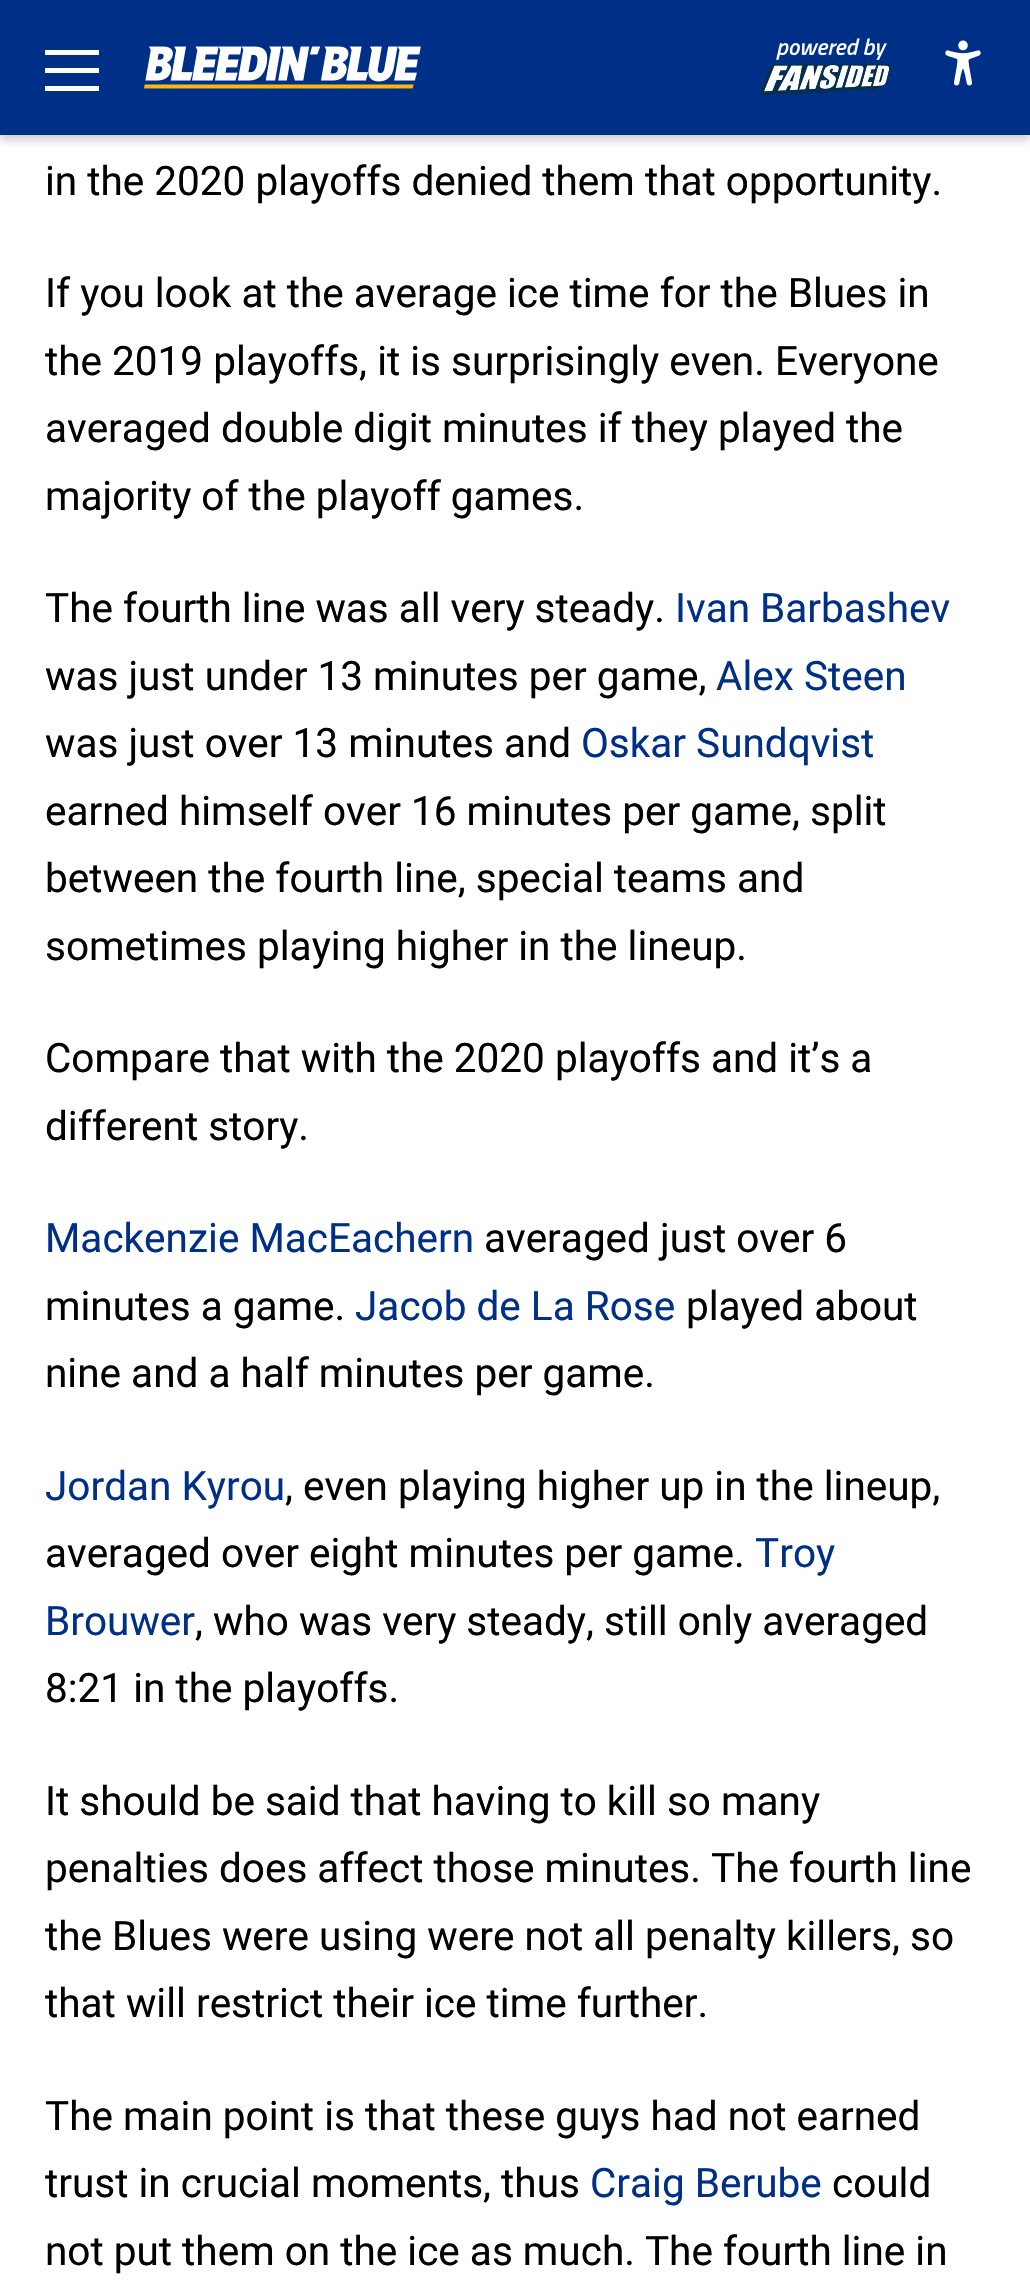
#include "include/core/SkBlurTypes.h"
#include "include/core/SkCanvas.h"
#include "include/core/SkData.h"
#include "include/core/SkFont.h"
#include "include/core/SkFontMgr.h"
#include "include/core/SkImage.h"
#include "include/core/SkMaskFilter.h"
#include "include/core/SkPaint.h"
#include "include/core/SkPathBuilder.h"
#include "include/core/SkTextBlob.h"
#include "include/effects/SkDashPathEffect.h"
#include "include/effects/SkGradientShader.h"
#include "include/utils/SkParsePath.h"

extern sk_sp<SkFontMgr> fontMgr;

static SkFont font(const char* family, int weight, float size, bool italic = false) {
    SkFontStyle style(weight, SkFontStyle::kNormal_Width,
        italic ? SkFontStyle::kItalic_Slant : SkFontStyle::kUpright_Slant);
    SkFont result(fontMgr->matchFamilyStyle(family, style), size);
    result.setSubpixel(true);
    return result;
}

static void drawLabel(SkCanvas* canvas, const char* s, float x, float y, const SkFont& font, SkColor color) {
    SkPaint ink(SkColor4f::FromColor(color));
    ink.setAntiAlias(true);
    canvas->drawString(s, x, y, font, ink);
}

static void fillRect(SkCanvas* canvas, float x, float y, float w, float h, SkColor color) {
    SkPaint ink(SkColor4f::FromColor(color));
    ink.setAntiAlias(true);
    canvas->drawRect(SkRect::MakeXYWH(x, y, w, h), ink);
}

static void drawPhoto(SkCanvas* canvas, const char* path, float x, float y, float w, float h) {
    auto image = SkImages::DeferredFromEncodedData(SkData::MakeFromFileName(path));
    canvas->drawImageRect(image, SkRect::MakeXYWH(x, y, w, h), SkSamplingOptions());
}

void draw(SkCanvas* canvas) {
    SkPaint paint;
    paint.setAntiAlias(true);
    canvas->clear(0xFFFFFFFF);
    paint.setColor(0x33000000);
    paint.setMaskFilter(SkMaskFilter::MakeBlur(kNormal_SkBlurStyle, 4.5f));
    canvas->drawRect(SkRect::MakeXYWH(0, 5, 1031, 135), paint);
    paint.setMaskFilter(nullptr);
    fillRect(canvas, 0, 0, 1030, 135, 0xFF002F87);
    fillRect(canvas, 45, 50, 54, 5, 0xFFFFFFFF);
    fillRect(canvas, 45, 68, 54, 5, 0xFFFFFFFF);
    fillRect(canvas, 45, 86, 54, 5, 0xFFFFFFFF);
    drawPhoto(canvas, "assets/img1.png", 144, 46, 277, 43);
    drawPhoto(canvas, "assets/img2.png", 758, 38, 133, 58);
    drawPhoto(canvas, "assets/img3.png", 945, 40, 36, 46);
    SkFont font1 = font("Roboto", 400, 40.5f);
    drawLabel(canvas, "in the 2020 playoffs denied them that opportunity.", 45, 195, font1, 0xFF000000);
    drawLabel(canvas, "If you look at the average ice time for the Blues in", 45, 307, font1, 0xFF000000);
    drawLabel(canvas, "the 2019 playoffs, it is surprisingly even. Everyone", 45, 375, font1, 0xFF000000);
    drawLabel(canvas, "averaged double digit minutes if they played the", 45, 442, font1, 0xFF000000);
    drawLabel(canvas, "majority of the playoff games.", 45, 510, font1, 0xFF000000);
    drawLabel(canvas, "The fourth line was all very steady.", 45, 622, font1, 0xFF000000);
    drawLabel(canvas, "Ivan Barbashev", 675, 622, font1, 0xFF002F87);
    drawLabel(canvas, "was just under 13 minutes per game,", 45, 690, font1, 0xFF000000);
    drawLabel(canvas, "Alex Steen", 716, 690, font1, 0xFF002F87);
    drawLabel(canvas, "was just over 13 minutes and", 45, 757, font1, 0xFF000000);
    drawLabel(canvas, "Oskar Sundqvist", 581, 757, font1, 0xFF002F87);
    drawLabel(canvas, "earned himself over 16 minutes per game, split", 45, 825, font1, 0xFF000000);
    drawLabel(canvas, "between the fourth line, special teams and", 45, 892, font1, 0xFF000000);
    drawLabel(canvas, "sometimes playing higher in the lineup.", 45, 960, font1, 0xFF000000);
    drawLabel(canvas, "Compare that with the 2020 playoffs and it’s a", 45, 1072, font1, 0xFF000000);
    drawLabel(canvas, "different story.", 45, 1140, font1, 0xFF000000);
    drawLabel(canvas, "Mackenzie MacEachern", 45, 1252, font1, 0xFF002F87);
    drawLabel(canvas, "averaged just over 6", 484, 1252, font1, 0xFF000000);
    drawLabel(canvas, "minutes a game.", 45, 1320, font1, 0xFF000000);
    drawLabel(canvas, "Jacob de La Rose", 355, 1320, font1, 0xFF002F87);
    drawLabel(canvas, "played about", 686, 1320, font1, 0xFF000000);
    drawLabel(canvas, "nine and a half minutes per game.", 45, 1387, font1, 0xFF000000);
    drawLabel(canvas, "Jordan Kyrou", 45, 1500, font1, 0xFF002F87);
    drawLabel(canvas, ", even playing higher up in the lineup,", 285, 1500, font1, 0xFF000000);
    drawLabel(canvas, "averaged over eight minutes per game.", 45, 1567, font1, 0xFF000000);
    drawLabel(canvas, "Troy", 755, 1567, font1, 0xFF002F87);
    drawLabel(canvas, "Brouwer", 45, 1635, font1, 0xFF002F87);
    drawLabel(canvas, ", who was very steady, still only averaged", 195, 1635, font1, 0xFF000000);
    drawLabel(canvas, "8:21 in the playoffs.", 45, 1702, font1, 0xFF000000);
    drawLabel(canvas, "It should be said that having to kill so many", 45, 1815, font1, 0xFF000000);
    drawLabel(canvas, "penalties does affect those minutes. The fourth line", 45, 1882, font1, 0xFF000000);
    drawLabel(canvas, "the Blues were using were not all penalty killers, so", 45, 1950, font1, 0xFF000000);
    drawLabel(canvas, "that will restrict their ice time further.", 45, 2017, font1, 0xFF000000);
    drawLabel(canvas, "The main point is that these guys had not earned", 45, 2130, font1, 0xFF000000);
    drawLabel(canvas, "trust in crucial moments, thus", 45, 2197, font1, 0xFF000000);
    drawLabel(canvas, "Craig Berube", 590, 2197, font1, 0xFF002F87);
    drawLabel(canvas, "could", 832, 2197, font1, 0xFF000000);
    drawLabel(canvas, "not put them on the ice as much. The fourth line in", 45, 2265, font1, 0xFF000000);
}
